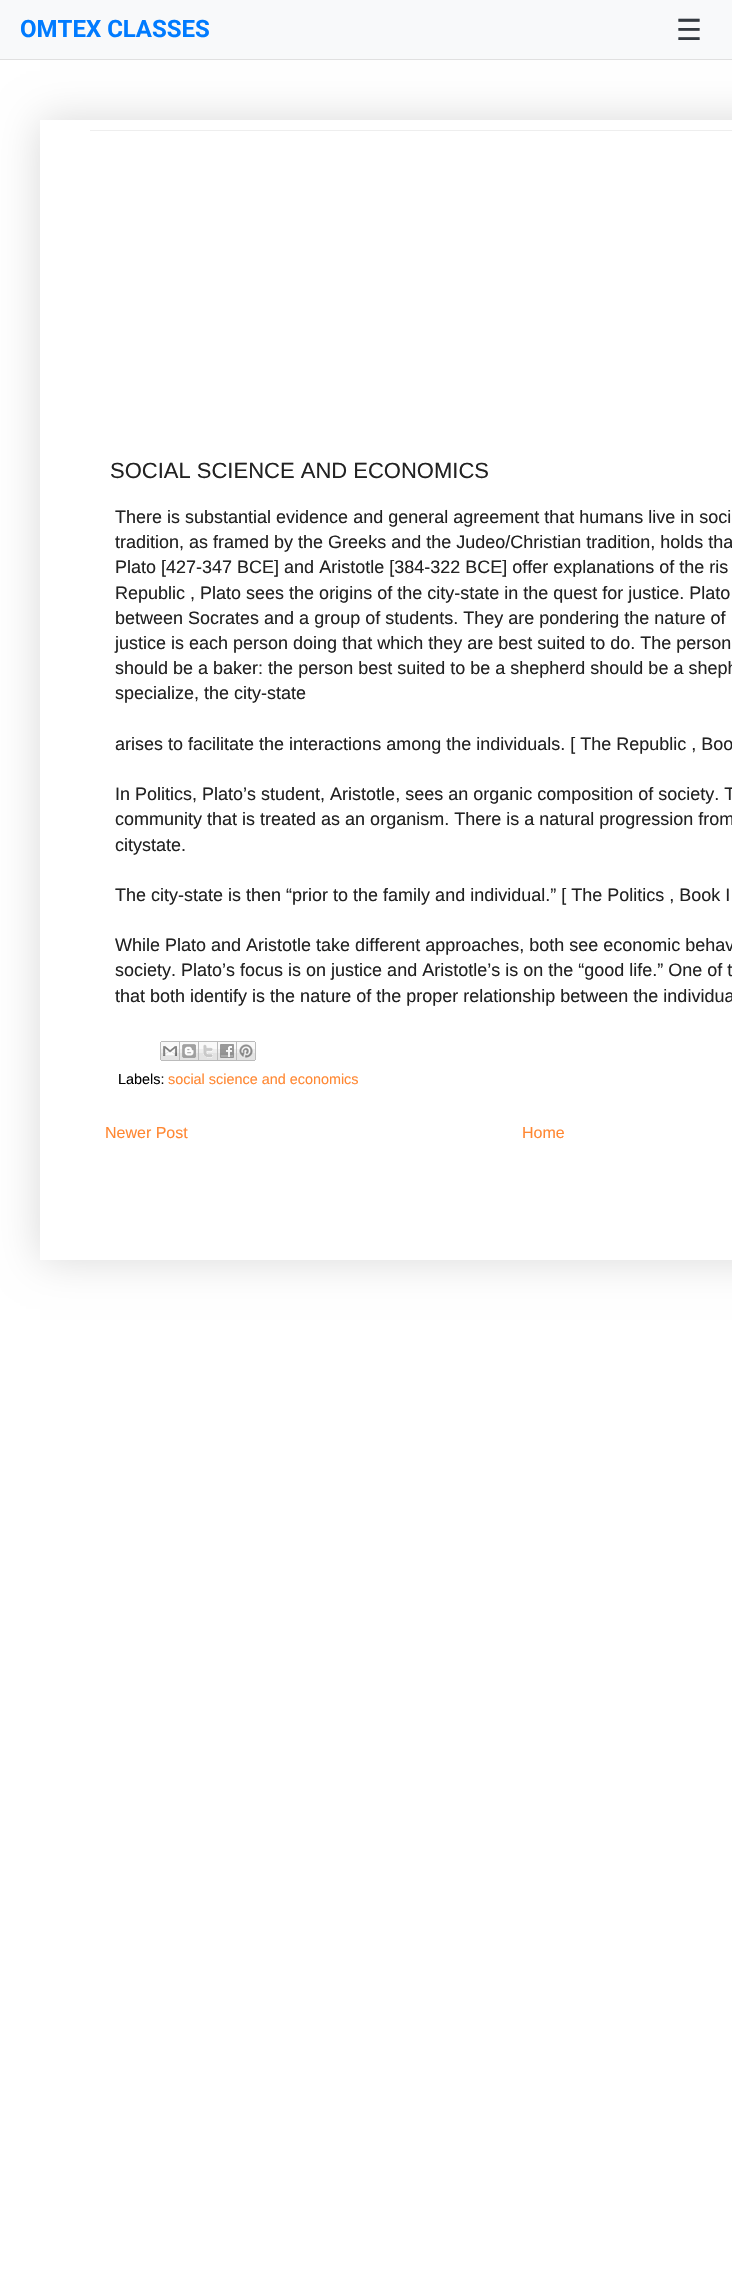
#include "include/core/SkBlurTypes.h"
#include "include/core/SkCanvas.h"
#include "include/core/SkData.h"
#include "include/core/SkFont.h"
#include "include/core/SkFontMgr.h"
#include "include/core/SkImage.h"
#include "include/core/SkMaskFilter.h"
#include "include/core/SkPaint.h"
#include "include/core/SkPathBuilder.h"
#include "include/core/SkTextBlob.h"
#include "include/effects/SkDashPathEffect.h"
#include "include/effects/SkGradientShader.h"
#include "include/utils/SkParsePath.h"

extern sk_sp<SkFontMgr> fontMgr;

static SkFont font(const char* family, int weight, float size, bool italic = false) {
    SkFontStyle style(weight, SkFontStyle::kNormal_Width,
        italic ? SkFontStyle::kItalic_Slant : SkFontStyle::kUpright_Slant);
    SkFont result(fontMgr->matchFamilyStyle(family, style), size);
    result.setSubpixel(true);
    return result;
}

static void drawLabel(SkCanvas* canvas, const char* s, float x, float y, const SkFont& font, SkColor color) {
    SkPaint ink(SkColor4f::FromColor(color));
    ink.setAntiAlias(true);
    canvas->drawString(s, x, y, font, ink);
}

static void fillRect(SkCanvas* canvas, float x, float y, float w, float h, SkColor color) {
    SkPaint ink(SkColor4f::FromColor(color));
    ink.setAntiAlias(true);
    canvas->drawRect(SkRect::MakeXYWH(x, y, w, h), ink);
}

static void drawPhoto(SkCanvas* canvas, const char* path, float x, float y, float w, float h) {
    auto image = SkImages::DeferredFromEncodedData(SkData::MakeFromFileName(path));
    canvas->drawImageRect(image, SkRect::MakeXYWH(x, y, w, h), SkSamplingOptions());
}

static SkPath parsePath(const char* data, bool evenOdd = false) {
    SkPath result = *SkParsePath::FromSVGString(data);
    if (evenOdd) result.setFillType(SkPathFillType::kEvenOdd);
    return result;
}

void draw(SkCanvas* canvas) {
    SkPaint paint;
    paint.setAntiAlias(true);
    canvas->clear(0xFFFFFFFF);
    fillRect(canvas, 0, 0, 732, 59, 0xFFF8F9FA);
    canvas->save();
    canvas->clipPath(parsePath("M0 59H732V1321H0ZM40 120H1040V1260H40Z", true), true);
    paint.setColor(0x26000000);
    paint.setMaskFilter(SkMaskFilter::MakeBlur(kNormal_SkBlurStyle, 20));
    canvas->drawRect(SkRect::MakeXYWH(40, 120, 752, 1140), paint);
    paint.setMaskFilter(nullptr);
    canvas->restore();
    fillRect(canvas, 0, 59, 732, 1, 0xFFE0E0E0);
    SkFont font1 = font("Roboto", 700, 24);
    drawLabel(canvas, "OMTEX CLASSES", 20, 37, font1, 0xFF007BFF);
    SkFont font2 = font("DejaVu Sans", 400, 29);
    drawLabel(canvas, "☰", 676, 40, font2, 0xFF343A40);
    fillRect(canvas, 90, 130, 642, 1, 0xFFEEEEEE);
    SkFont font3 = font("Liberation Sans", 400, 22);
    drawLabel(canvas, "SOCIAL SCIENCE AND ECONOMICS", 110, 478, font3, 0xFF222222);
    SkFont font4 = font("Liberation Sans", 400, 18);
    drawLabel(canvas, "There is substantial evidence and general agreement that humans live in soci", 115, 523, font4, 0xFF222222);
    drawLabel(canvas, "tradition, as framed by the Greeks and the Judeo/Christian tradition, holds tha", 115, 548, font4, 0xFF222222);
    drawLabel(canvas, "Plato [427-347 BCE] and Aristotle [384-322 BCE] offer explanations of the ris", 115, 573, font4, 0xFF222222);
    drawLabel(canvas, "Republic , Plato sees the origins of the city-state in the quest for justice. Plato", 115, 599, font4, 0xFF222222);
    drawLabel(canvas, "between Socrates and a group of students. They are pondering the nature of", 115, 624, font4, 0xFF222222);
    drawLabel(canvas, "justice is each person doing that which they are best suited to do. The person", 115, 649, font4, 0xFF222222);
    drawLabel(canvas, "should be a baker: the person best suited to be a shepherd should be a sheph", 115, 674, font4, 0xFF222222);
    drawLabel(canvas, "specialize, the city-state", 115, 699, font4, 0xFF222222);
    drawLabel(canvas, "arises to facilitate the interactions among the individuals. [ The Republic , Boo", 115, 750, font4, 0xFF222222);
    drawLabel(canvas, "In Politics, Plato’s student, Aristotle, sees an organic composition of society. T", 115, 800, font4, 0xFF222222);
    drawLabel(canvas, "community that is treated as an organism. There is a natural progression from", 115, 825, font4, 0xFF222222);
    drawLabel(canvas, "citystate.", 115, 851, font4, 0xFF222222);
    drawLabel(canvas, "The city-state is then “prior to the family and individual.” [ The Politics , Book I", 115, 901, font4, 0xFF222222);
    drawLabel(canvas, "While Plato and Aristotle take different approaches, both see economic behav", 115, 951, font4, 0xFF222222);
    drawLabel(canvas, "society. Plato’s focus is on justice and Aristotle’s is on the “good life.” One of t", 115, 976, font4, 0xFF222222);
    drawLabel(canvas, "that both identify is the nature of the proper relationship between the individua", 115, 1002, font4, 0xFF222222);
    drawPhoto(canvas, "assets/img1.png", 160, 1041, 20, 20);
    drawPhoto(canvas, "assets/img2.png", 180, 1041, 19, 20);
    drawPhoto(canvas, "assets/img3.png", 199, 1041, 19, 20);
    drawPhoto(canvas, "assets/img4.png", 218, 1041, 19, 20);
    drawPhoto(canvas, "assets/img5.png", 237, 1041, 19, 20);
    SkFont font5 = font("Liberation Sans", 400, 14.4f);
    drawLabel(canvas, "Labels:", 118, 1084, font5, 0xFF000000);
    drawLabel(canvas, "social science and economics", 168, 1084, font5, 0xFFFF8833);
    SkFont font6 = font("Liberation Sans", 400, 16);
    drawLabel(canvas, "Newer Post", 105, 1138, font6, 0xFFFF8833);
    drawLabel(canvas, "Home", 522, 1138, font6, 0xFFFF8833);
}
